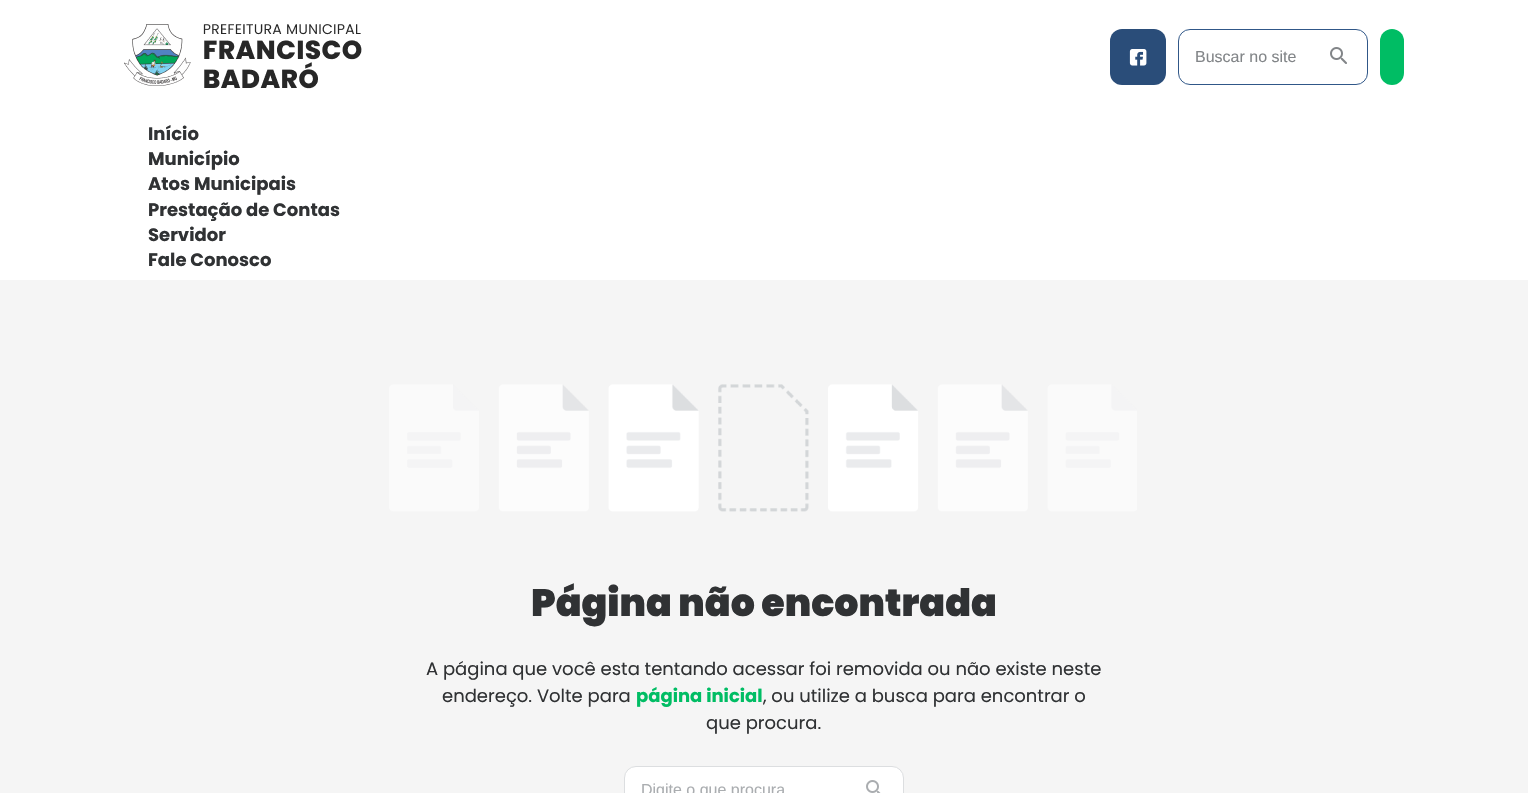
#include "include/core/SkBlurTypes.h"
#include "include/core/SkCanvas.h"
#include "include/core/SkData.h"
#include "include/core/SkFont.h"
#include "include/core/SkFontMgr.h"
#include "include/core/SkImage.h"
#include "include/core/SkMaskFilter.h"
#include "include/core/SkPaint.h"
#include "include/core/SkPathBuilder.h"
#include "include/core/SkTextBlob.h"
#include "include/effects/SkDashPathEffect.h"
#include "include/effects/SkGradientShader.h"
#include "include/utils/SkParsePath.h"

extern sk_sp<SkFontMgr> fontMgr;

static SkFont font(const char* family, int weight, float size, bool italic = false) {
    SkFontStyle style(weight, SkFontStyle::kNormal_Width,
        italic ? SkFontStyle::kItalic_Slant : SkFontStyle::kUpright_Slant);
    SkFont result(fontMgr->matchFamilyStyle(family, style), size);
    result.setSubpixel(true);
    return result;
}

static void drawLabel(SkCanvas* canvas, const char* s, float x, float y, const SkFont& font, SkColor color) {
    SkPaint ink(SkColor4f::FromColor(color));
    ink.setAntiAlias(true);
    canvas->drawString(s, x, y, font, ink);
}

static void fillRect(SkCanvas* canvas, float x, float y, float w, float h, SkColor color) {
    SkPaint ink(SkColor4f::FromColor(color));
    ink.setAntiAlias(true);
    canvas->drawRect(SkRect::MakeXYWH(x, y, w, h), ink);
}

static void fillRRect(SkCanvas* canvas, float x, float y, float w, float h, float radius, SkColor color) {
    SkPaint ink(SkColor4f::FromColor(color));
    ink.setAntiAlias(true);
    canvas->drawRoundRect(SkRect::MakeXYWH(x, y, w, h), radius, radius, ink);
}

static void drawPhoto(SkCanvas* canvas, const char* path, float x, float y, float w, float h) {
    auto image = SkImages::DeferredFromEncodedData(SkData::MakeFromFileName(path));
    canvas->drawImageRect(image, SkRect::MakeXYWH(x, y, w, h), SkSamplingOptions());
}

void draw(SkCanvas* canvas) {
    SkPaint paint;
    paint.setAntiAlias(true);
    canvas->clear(0xFFF5F5F5);
    fillRect(canvas, 0, 0, 1528, 280, 0xFFFFFFFF);
    drawPhoto(canvas, "assets/img1.png", 124, 24, 238, 65);
    fillRRect(canvas, 1110, 29, 56, 56, 12, 0xFF2A4D79);
    drawPhoto(canvas, "assets/img2.png", 1129, 49, 18, 17);
    paint.setStroke(true);
    paint.setStrokeWidth(1);
    paint.setColor(0xFF305788);
    canvas->drawRoundRect(SkRect::MakeXYWH(1178.5f, 29.5f, 189, 55), 11.5f, 11.5f, paint);
    SkFont font1 = font("Liberation Sans", 400, 16);
    drawLabel(canvas, "Buscar no site", 1195, 62, font1, 0xFF828588);
    drawPhoto(canvas, "assets/img3.png", 1330, 47, 17, 17);
    fillRRect(canvas, 1380, 29, 24, 56, 12, 0xFF00BD64);
    SkFont font2 = font("Poppins", 700, 18);
    drawLabel(canvas, "Início", 148, 140, font2, 0xFF303234);
    drawLabel(canvas, "Município", 148, 165, font2, 0xFF303234);
    drawLabel(canvas, "Atos Municipais", 148, 190, font2, 0xFF303234);
    drawLabel(canvas, "Prestação de Contas", 148, 216, font2, 0xFF303234);
    drawLabel(canvas, "Servidor", 148, 241, font2, 0xFF303234);
    drawLabel(canvas, "Fale Conosco", 148, 266, font2, 0xFF303234);
    drawPhoto(canvas, "assets/img4.png", 389, 384, 748, 128);
    SkFont font3 = font("Poppins", 900, 38);
    drawLabel(canvas, "Página não encontrada", 531, 616, font3, 0xFF303234);
    SkFont font4 = font("Poppins", 400, 18);
    drawLabel(canvas, "A página que você esta tentando acessar foi removida ou não existe neste", 426, 675, font4, 0xFF303234);
    drawLabel(canvas, "endereço. Volte para", 442, 702, font4, 0xFF303234);
    drawLabel(canvas, "página inicial", 636, 702, font2, 0xFF00BD64);
    drawLabel(canvas, ", ou utilize a busca para encontrar o", 763, 702, font4, 0xFF303234);
    drawLabel(canvas, "que procura.", 706, 729, font4, 0xFF303234);
    paint.setStroke(false);
    paint.setColor(0xFFFFFFFF);
    canvas->drawRoundRect(SkRect::MakeXYWH(624.5f, 766.5f, 279, 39), 11.5f, 11.5f, paint);
    paint.setStroke(true);
    paint.setColor(0xFFDCDEE0);
    canvas->drawRoundRect(SkRect::MakeXYWH(624.5f, 766.5f, 279, 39), 11.5f, 11.5f, paint);
    drawLabel(canvas, "Digite o que procura", 641, 795, font1, 0xFFAAADB0);
    drawPhoto(canvas, "assets/img5.png", 866, 780, 15, 13);
}
